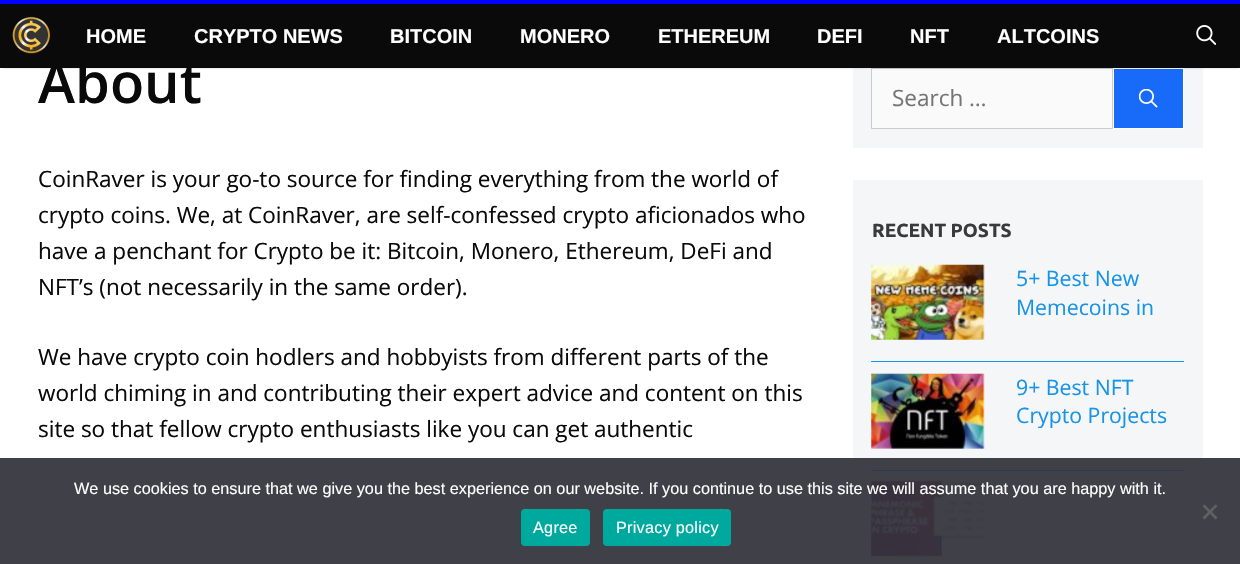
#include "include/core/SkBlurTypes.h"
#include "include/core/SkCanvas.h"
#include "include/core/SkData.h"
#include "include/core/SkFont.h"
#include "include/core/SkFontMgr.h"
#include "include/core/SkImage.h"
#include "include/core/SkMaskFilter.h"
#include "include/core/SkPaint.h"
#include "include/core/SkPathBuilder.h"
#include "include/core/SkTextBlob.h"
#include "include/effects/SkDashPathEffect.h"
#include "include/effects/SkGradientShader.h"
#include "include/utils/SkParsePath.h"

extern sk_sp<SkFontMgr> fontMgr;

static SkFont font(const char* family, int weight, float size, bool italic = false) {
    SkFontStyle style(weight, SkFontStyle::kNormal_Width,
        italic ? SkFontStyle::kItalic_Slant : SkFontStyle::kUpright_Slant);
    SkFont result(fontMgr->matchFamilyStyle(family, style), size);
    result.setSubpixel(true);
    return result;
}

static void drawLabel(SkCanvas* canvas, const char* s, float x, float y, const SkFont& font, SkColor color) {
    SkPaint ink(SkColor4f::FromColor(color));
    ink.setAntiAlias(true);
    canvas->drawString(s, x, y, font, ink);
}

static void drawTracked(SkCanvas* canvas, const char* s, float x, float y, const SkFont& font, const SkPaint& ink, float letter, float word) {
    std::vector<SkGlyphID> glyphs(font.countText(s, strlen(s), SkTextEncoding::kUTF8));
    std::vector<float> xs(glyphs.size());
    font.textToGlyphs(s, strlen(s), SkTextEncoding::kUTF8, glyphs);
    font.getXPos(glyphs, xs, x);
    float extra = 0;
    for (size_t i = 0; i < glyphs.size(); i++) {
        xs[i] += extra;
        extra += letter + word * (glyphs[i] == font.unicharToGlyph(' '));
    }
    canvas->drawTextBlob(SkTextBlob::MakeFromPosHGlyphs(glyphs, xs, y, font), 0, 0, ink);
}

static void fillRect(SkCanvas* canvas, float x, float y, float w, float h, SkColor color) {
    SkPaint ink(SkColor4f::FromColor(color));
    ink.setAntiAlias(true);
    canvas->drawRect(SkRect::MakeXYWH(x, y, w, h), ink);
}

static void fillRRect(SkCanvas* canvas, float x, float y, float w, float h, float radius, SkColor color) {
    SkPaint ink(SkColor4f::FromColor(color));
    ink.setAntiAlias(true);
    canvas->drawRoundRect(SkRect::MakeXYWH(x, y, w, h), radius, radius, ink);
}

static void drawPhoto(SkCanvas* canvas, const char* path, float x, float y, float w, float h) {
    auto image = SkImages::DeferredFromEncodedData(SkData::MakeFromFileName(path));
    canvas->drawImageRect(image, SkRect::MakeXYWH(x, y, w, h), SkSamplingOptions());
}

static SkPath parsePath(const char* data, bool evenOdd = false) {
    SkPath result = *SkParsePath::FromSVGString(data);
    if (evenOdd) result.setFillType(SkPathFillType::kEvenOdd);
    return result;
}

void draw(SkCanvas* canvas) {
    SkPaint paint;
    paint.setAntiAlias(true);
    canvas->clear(0xFFFFFFFF);
    fillRect(canvas, 853, 68, 350, 80, 0xFFF4F6F7);
    paint.setColor(0xFFFAFAFA);
    canvas->drawRect(SkRect::MakeXYWH(871.5f, 68.5f, 241, 60), paint);
    paint.setStroke(true);
    paint.setStrokeWidth(1);
    paint.setColor(0xFFCCCCCC);
    canvas->drawRect(SkRect::MakeXYWH(871.5f, 68.5f, 241, 60), paint);
    paint.setStroke(false);
    paint.setColor(0xFF186BF9);
    canvas->drawRect(SkRect::MakeXYWH(1113.5f, 68.5f, 70, 60), paint);
    paint.setStroke(true);
    paint.setColor(0xFFFFFFFF);
    canvas->drawRect(SkRect::MakeXYWH(1113.5f, 68.5f, 70, 60), paint);
    paint.setStroke(false);
    paint.setColor(0x33000000);
    paint.setMaskFilter(SkMaskFilter::MakeBlur(kNormal_SkBlurStyle, 1));
    canvas->drawRect(SkRect::MakeXYWH(3, 5, 1235, 63), paint);
    paint.setMaskFilter(nullptr);
    fillRect(canvas, 0, 4, 1240, 64, 0xFF0A0A0A);
    fillRect(canvas, 0, 0, 1240, 4, 0xFF0000FF);
    drawPhoto(canvas, "assets/img1.png", 12, 16, 39, 38);
    SkFont font1 = font("Liberation Sans", 700, 20);
    drawLabel(canvas, "HOME", 86, 43, font1, 0xFFFFFFFF);
    drawLabel(canvas, "CRYPTO NEWS", 194, 43, font1, 0xFFFFFFFF);
    drawLabel(canvas, "BITCOIN", 390, 43, font1, 0xFFFFFFFF);
    drawLabel(canvas, "MONERO", 520, 43, font1, 0xFFFFFFFF);
    drawLabel(canvas, "ETHEREUM", 658, 43, font1, 0xFFFFFFFF);
    drawLabel(canvas, "DEFI", 817, 43, font1, 0xFFFFFFFF);
    drawLabel(canvas, "NFT", 910, 43, font1, 0xFFFFFFFF);
    drawLabel(canvas, "ALTCOINS", 997, 43, font1, 0xFFFFFFFF);
    drawPhoto(canvas, "assets/img2.png", 1196, 25, 20, 20);
    SkFont font2 = font("Open Sans", 600, 56);
    drawLabel(canvas, "About", 38, 103, font2, 0xFF0A0A0A);
    SkFont font3 = font("Open Sans", 400, 22.5f);
    drawLabel(canvas, "CoinRaver is your go-to source for finding everything from the world of", 38, 187, font3, 0xFF0A0A0A);
    drawLabel(canvas, "crypto coins. We, at CoinRaver, are self-confessed crypto aficionados who", 38, 223, font3, 0xFF0A0A0A);
    drawLabel(canvas, "have a penchant for Crypto be it: Bitcoin, Monero, Ethereum, DeFi and", 38, 259, font3, 0xFF0A0A0A);
    drawLabel(canvas, "NFT’s (not necessarily in the same order).", 38, 295, font3, 0xFF0A0A0A);
    drawLabel(canvas, "We have crypto coin hodlers and hobbyists from different parts of the", 38, 365, font3, 0xFF0A0A0A);
    drawLabel(canvas, "world chiming in and contributing their expert advice and content on this", 38, 401, font3, 0xFF0A0A0A);
    drawLabel(canvas, "site so that fellow crypto enthusiasts like you can get authentic", 38, 437, font3, 0xFF0A0A0A);
    drawLabel(canvas, "Search …", 892, 106, font3, 0xFF757575);
    drawPhoto(canvas, "assets/img3.png", 1139, 89, 19, 19);
    fillRect(canvas, 853, 180, 350, 384, 0xFFF4F6F7);
    SkFont font4 = font("Ubuntu", 700, 19);
    drawLabel(canvas, "RECENT POSTS", 872, 237, font4, 0xFF3A3A3A);
    fillRect(canvas, 871, 361, 313, 1, 0xFF1794E8);
    drawPhoto(canvas, "assets/img4.png", 871, 264, 114, 76);
    SkFont font5 = font("Open Sans", 400, 21.25f);
    drawLabel(canvas, "5+ Best New", 1016, 286, font5, 0xFF1794E8);
    drawLabel(canvas, "Memecoins in", 1016, 315, font5, 0xFF1794E8);
    fillRect(canvas, 871, 470, 313, 1, 0xFF1794E8);
    drawPhoto(canvas, "assets/img5.png", 871, 373, 114, 76);
    drawLabel(canvas, "9+ Best NFT", 1016, 395, font5, 0xFF1794E8);
    drawLabel(canvas, "Crypto Projects", 1016, 423, font5, 0xFF1794E8);
    drawPhoto(canvas, "assets/img6.png", 871, 480, 114, 77);
    fillRect(canvas, 0, 458, 1240, 106, 0xED32323A);
    SkFont font6 = font("Liberation Sans", 400, 16.25f);
    drawLabel(canvas, "We use cookies to ensure that we give you the best experience on our website. If you continue to use this site we will assume that you are happy with it.", 74, 494, font6, 0xFFFFFFFF);
    paint.setColor(0xFF606064);
    canvas->drawPath(parsePath("M1215.5 504.5L1217.5 506L1204.5 519.5L1202.5 517.5Z"), paint);
    canvas->drawPath(parsePath("M1202.5 506L1204.5 504.5L1217.5 517.5L1215.5 519.5Z"), paint);
    fillRRect(canvas, 521, 509, 69, 37, 4, 0xFF00A99D);
    paint.setColor(0xFFFFFFFF);
    drawTracked(canvas, "Agree", 533, 533, font6, paint, 0.25f, 0);
    fillRRect(canvas, 603, 509, 128, 37, 4, 0xFF00A99D);
    drawTracked(canvas, "Privacy policy", 616, 533, font6, paint, 0.25f, 0);
}
